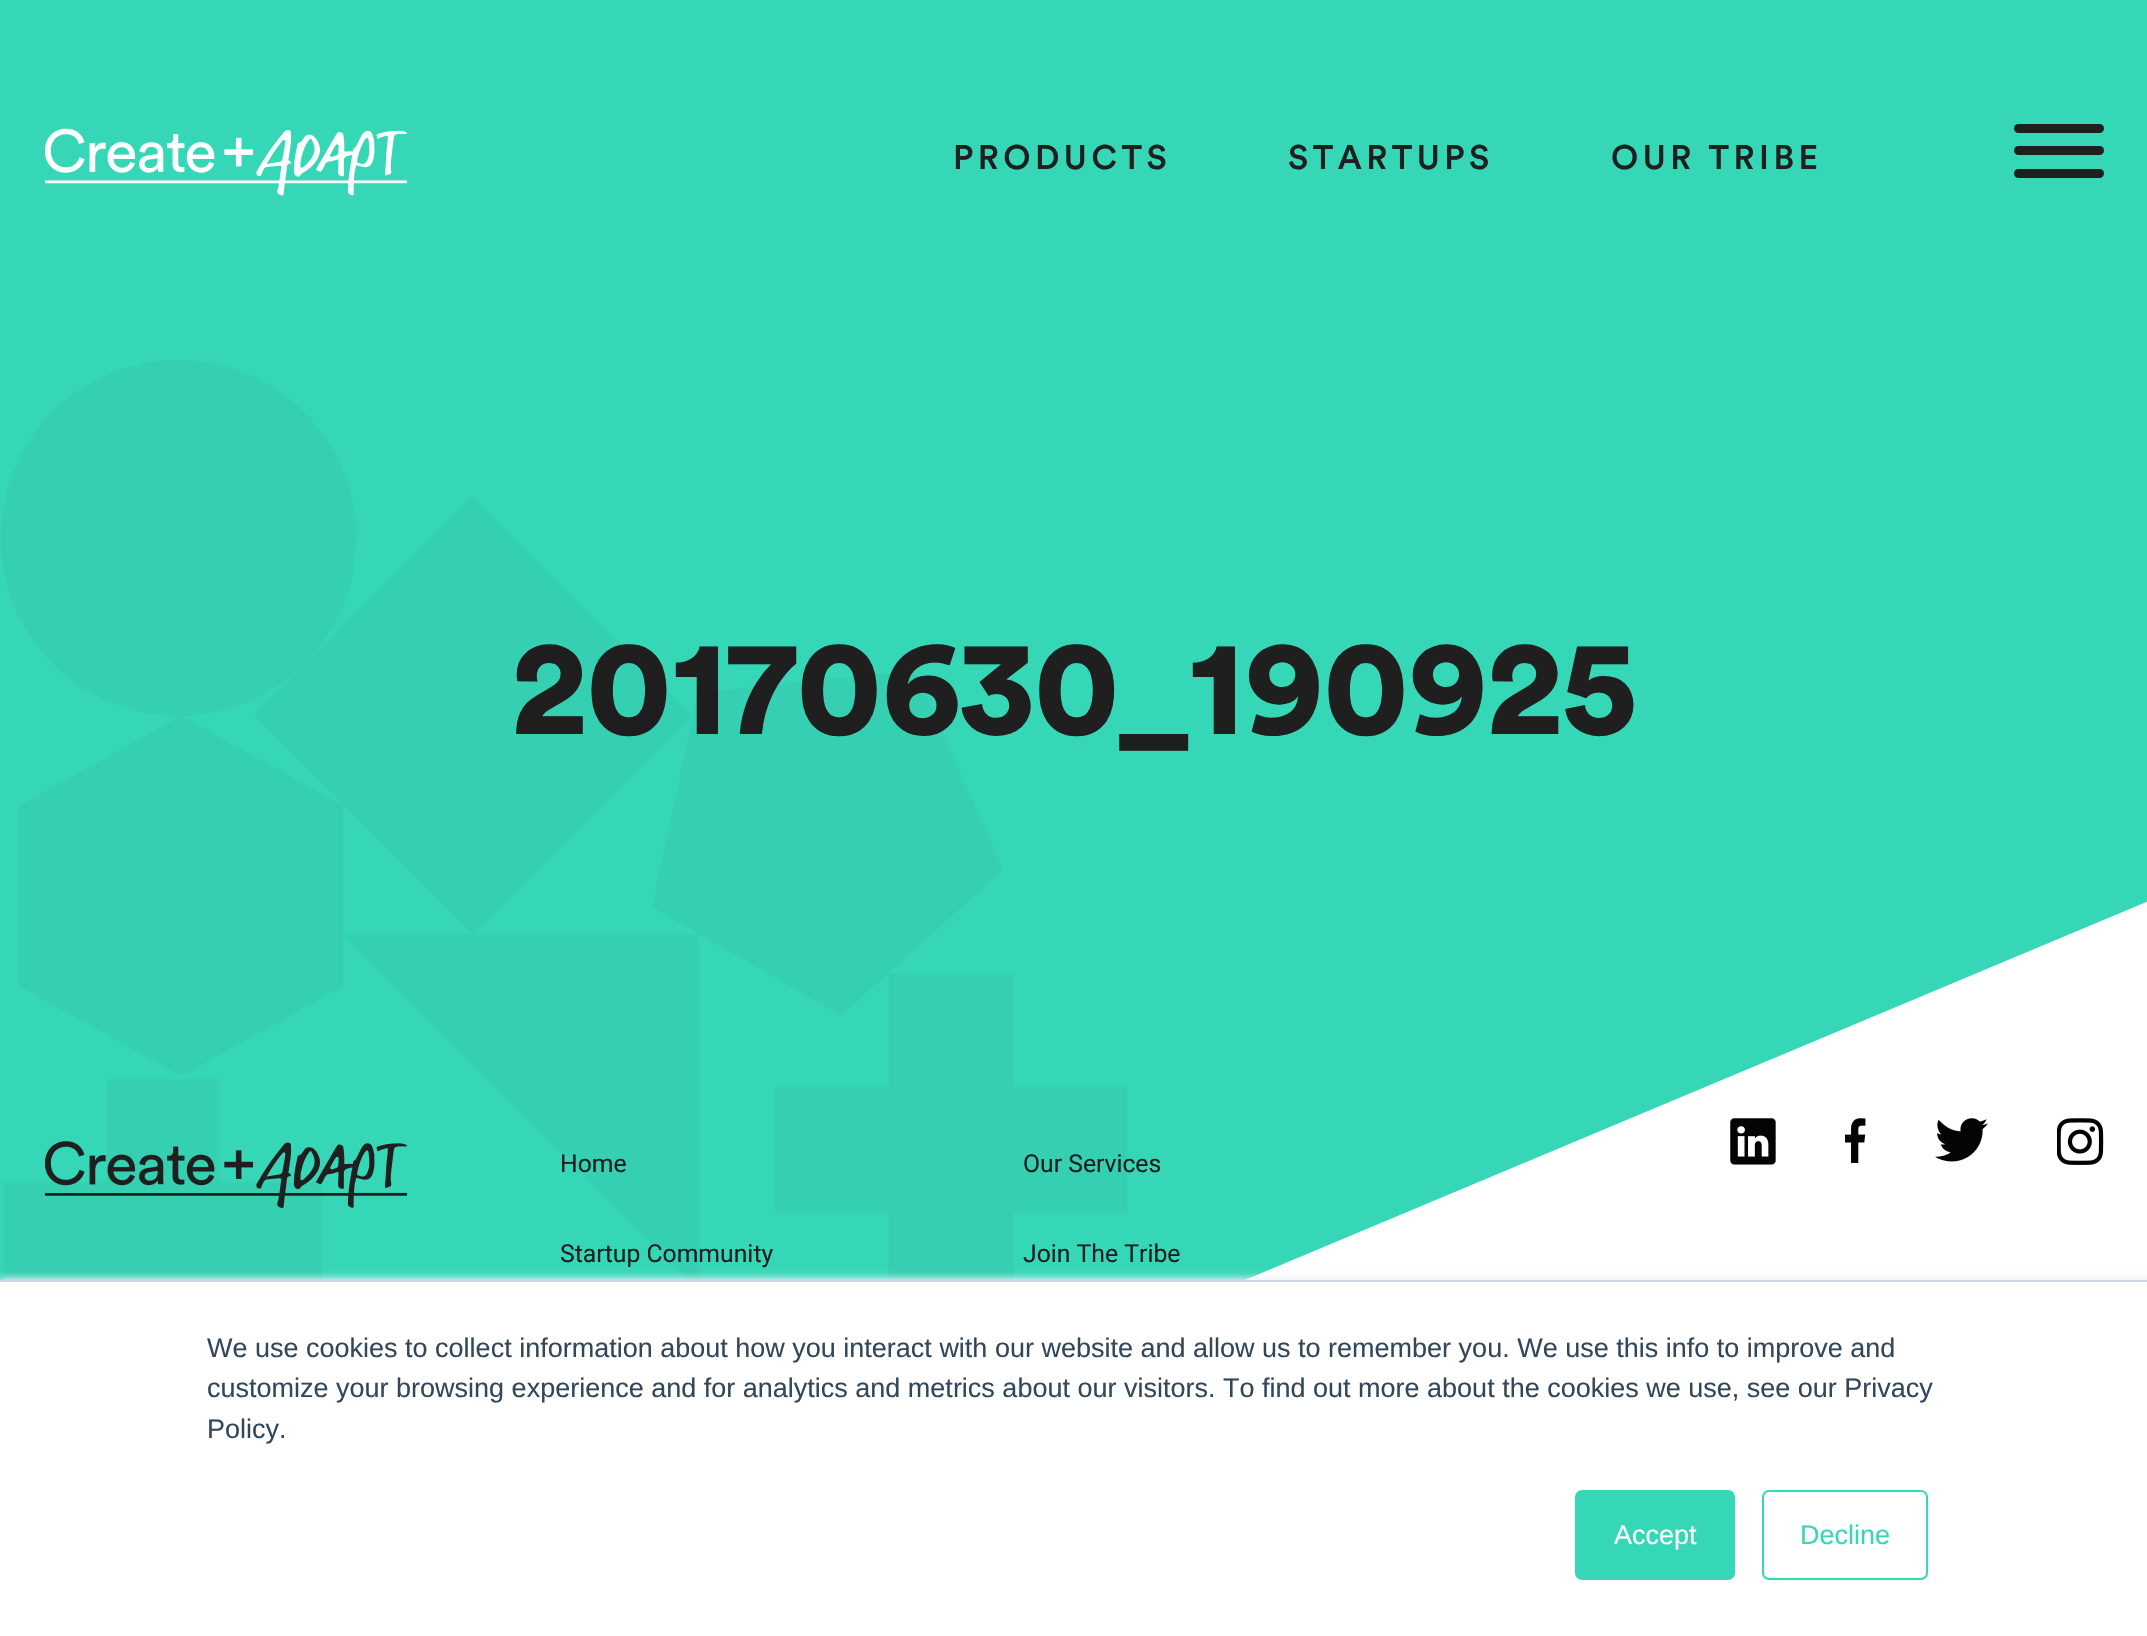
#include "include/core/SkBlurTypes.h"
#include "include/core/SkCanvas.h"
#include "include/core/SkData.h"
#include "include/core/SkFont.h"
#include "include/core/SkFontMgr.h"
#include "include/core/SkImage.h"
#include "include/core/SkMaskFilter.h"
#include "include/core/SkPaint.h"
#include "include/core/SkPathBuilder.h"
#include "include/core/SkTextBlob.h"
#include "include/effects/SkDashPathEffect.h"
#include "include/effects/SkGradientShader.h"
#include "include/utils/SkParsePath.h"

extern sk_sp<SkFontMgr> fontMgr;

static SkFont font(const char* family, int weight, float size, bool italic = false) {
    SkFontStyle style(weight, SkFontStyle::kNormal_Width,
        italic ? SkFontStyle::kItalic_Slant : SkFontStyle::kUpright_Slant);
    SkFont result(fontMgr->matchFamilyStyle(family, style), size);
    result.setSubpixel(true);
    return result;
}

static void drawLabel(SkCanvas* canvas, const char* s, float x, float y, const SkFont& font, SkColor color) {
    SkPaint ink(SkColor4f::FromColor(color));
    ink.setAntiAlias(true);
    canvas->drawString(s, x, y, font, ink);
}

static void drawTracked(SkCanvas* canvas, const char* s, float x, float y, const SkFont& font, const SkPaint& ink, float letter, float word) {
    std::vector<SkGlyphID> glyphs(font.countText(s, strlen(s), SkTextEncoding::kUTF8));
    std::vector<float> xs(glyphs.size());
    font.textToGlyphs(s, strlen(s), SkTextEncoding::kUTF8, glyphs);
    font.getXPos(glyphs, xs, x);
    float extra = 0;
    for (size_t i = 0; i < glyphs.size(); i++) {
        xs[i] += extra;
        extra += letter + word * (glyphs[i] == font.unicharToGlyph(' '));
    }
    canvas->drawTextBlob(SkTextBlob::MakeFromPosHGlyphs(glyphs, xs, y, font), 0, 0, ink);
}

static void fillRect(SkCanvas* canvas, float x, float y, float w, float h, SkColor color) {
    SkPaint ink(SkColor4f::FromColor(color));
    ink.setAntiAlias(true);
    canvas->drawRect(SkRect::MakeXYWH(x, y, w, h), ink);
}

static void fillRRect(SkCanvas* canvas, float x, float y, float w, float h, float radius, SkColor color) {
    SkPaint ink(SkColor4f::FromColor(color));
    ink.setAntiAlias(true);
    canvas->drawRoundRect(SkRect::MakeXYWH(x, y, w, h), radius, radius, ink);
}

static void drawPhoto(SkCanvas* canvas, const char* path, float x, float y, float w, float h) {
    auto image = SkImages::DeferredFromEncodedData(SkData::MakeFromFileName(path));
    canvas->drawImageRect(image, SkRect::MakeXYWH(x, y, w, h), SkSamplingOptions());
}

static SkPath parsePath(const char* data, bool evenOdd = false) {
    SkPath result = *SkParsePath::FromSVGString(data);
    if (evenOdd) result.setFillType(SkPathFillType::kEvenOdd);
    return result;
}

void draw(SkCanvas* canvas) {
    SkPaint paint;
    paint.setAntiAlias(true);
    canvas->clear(0xFFFFFFFF);
    paint.setColor(0xFF36D7B7);
    canvas->drawPath(parsePath("M0 0V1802L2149 901V0Z"), paint);
    drawPhoto(canvas, "assets/img1.png", 45, 128, 362, 68);
    SkFont font1 = font("Circular", 500, 33.75f);
    paint.setColor(0xFF1F1F1F);
    drawTracked(canvas, "PRODUCTS", 953, 169, font1, paint, 4.5f, 0);
    drawTracked(canvas, "STARTUPS", 1288, 169, font1, paint, 4.5f, 0);
    drawTracked(canvas, "OUR TRIBE", 1611, 169, font1, paint, 4.5f, 0);
    fillRRect(canvas, 2014, 124, 90, 9, 4.5f, 0xFF1F1F1F);
    fillRRect(canvas, 2014, 146, 90, 9, 4.5f, 0xFF1F1F1F);
    fillRRect(canvas, 2014, 169, 90, 9, 4.5f, 0xFF1F1F1F);
    SkFont font2 = font("Circular", 900, 135);
    drawLabel(canvas, "20170630_190925", 512, 734, font2, 0xFF1F1F1F);
    drawPhoto(canvas, "assets/img2.png", 1, 360, 1126, 920);
    drawPhoto(canvas, "assets/img3.png", 45, 1141, 362, 67);
    SkFont font3 = font("Roboto", 400, 24.75f);
    drawLabel(canvas, "Home", 560, 1172, font3, 0xFF1F1F1F);
    drawLabel(canvas, "Our Services", 1023, 1172, font3, 0xFF1F1F1F);
    drawLabel(canvas, "Startup Community", 560, 1262, font3, 0xFF1F1F1F);
    drawLabel(canvas, "Join The Tribe", 1023, 1262, font3, 0xFF1F1F1F);
    drawPhoto(canvas, "assets/img4.png", 1730, 1118, 46, 47);
    drawPhoto(canvas, "assets/img5.png", 1845, 1118, 21, 45);
    drawPhoto(canvas, "assets/img6.png", 1935, 1118, 53, 44);
    drawPhoto(canvas, "assets/img7.png", 2057, 1118, 47, 47);
    paint.setColor(0xFFEAF0F6);
    paint.setMaskFilter(SkMaskFilter::MakeBlur(kNormal_SkBlurStyle, 3.5f));
    canvas->drawRect(SkRect::MakeXYWH(0, 1278, 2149, 358), paint);
    paint.setMaskFilter(nullptr);
    fillRect(canvas, 0, 1282, 2147, 354, 0xFFFFFFFF);
    fillRect(canvas, 0, 1280, 2147, 2, 0xFFCBD6E2);
    SkFont font4 = font("Liberation Sans", 400, 27);
    drawLabel(canvas, "We use cookies to collect information about how you interact with our website and allow us to remember you. We use this info to improve and", 207, 1357, font4, 0xFF33475B);
    drawLabel(canvas, "customize your browsing experience and for analytics and metrics about our visitors. To find out more about the cookies we use, see our Privacy", 207, 1397, font4, 0xFF33475B);
    drawLabel(canvas, "Policy.", 207, 1438, font4, 0xFF33475B);
    paint.setColor(0xFF36D7B7);
    canvas->drawRoundRect(SkRect::MakeXYWH(1576, 1491, 158, 88), 6, 6, paint);
    paint.setStroke(true);
    paint.setStrokeWidth(2);
    canvas->drawRoundRect(SkRect::MakeXYWH(1576, 1491, 158, 88), 6, 6, paint);
    drawLabel(canvas, "Accept", 1614, 1544, font4, 0xFFFFFFFF);
    canvas->drawRoundRect(SkRect::MakeXYWH(1763, 1491, 164, 88), 6, 6, paint);
    drawLabel(canvas, "Decline", 1800, 1544, font4, 0xFF36D7B7);
}
